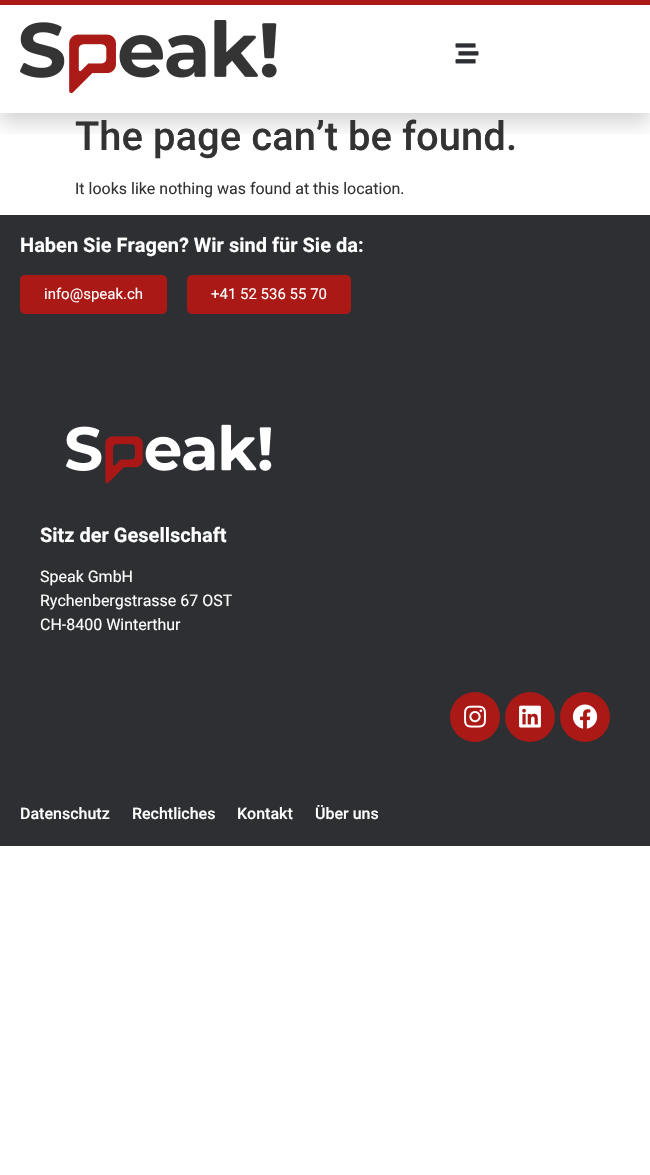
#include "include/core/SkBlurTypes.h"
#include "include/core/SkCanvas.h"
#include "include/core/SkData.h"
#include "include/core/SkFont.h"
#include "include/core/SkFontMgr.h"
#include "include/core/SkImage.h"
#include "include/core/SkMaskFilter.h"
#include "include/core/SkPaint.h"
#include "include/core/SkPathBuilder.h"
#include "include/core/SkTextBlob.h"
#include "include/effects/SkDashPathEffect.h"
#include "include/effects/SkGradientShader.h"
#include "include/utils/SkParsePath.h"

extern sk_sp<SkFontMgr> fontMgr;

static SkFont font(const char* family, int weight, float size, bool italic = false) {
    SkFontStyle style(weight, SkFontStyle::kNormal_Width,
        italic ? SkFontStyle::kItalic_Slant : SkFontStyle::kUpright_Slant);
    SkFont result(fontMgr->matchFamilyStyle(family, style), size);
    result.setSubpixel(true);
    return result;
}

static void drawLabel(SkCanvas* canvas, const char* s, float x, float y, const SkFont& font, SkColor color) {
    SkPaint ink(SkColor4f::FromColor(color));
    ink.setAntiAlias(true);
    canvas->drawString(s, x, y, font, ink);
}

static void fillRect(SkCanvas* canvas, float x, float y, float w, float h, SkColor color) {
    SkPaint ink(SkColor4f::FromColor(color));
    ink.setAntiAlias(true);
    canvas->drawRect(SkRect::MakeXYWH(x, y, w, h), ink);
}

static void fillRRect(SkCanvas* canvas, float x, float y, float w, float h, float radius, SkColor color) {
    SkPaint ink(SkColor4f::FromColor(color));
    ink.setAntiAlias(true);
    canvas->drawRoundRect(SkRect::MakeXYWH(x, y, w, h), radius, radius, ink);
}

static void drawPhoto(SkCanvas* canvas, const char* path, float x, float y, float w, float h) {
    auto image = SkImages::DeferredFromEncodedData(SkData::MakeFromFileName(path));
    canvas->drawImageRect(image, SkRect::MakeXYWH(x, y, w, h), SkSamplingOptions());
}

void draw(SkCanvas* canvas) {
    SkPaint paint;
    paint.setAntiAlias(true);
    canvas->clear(0xFFFFFFFF);
    canvas->save();
    canvas->clipRect(SkRect::MakeXYWH(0, 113, 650, 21));
    paint.setColor(0x2B000000);
    paint.setMaskFilter(SkMaskFilter::MakeBlur(kNormal_SkBlurStyle, 9.5f));
    canvas->drawRect(SkRect::MakeXYWH(0, 10, 650, 113), paint);
    paint.setMaskFilter(nullptr);
    canvas->restore();
    drawPhoto(canvas, "assets/img1.png", 20, 20, 257, 73);
    drawPhoto(canvas, "assets/img2.png", 455, 43, 24, 21);
    fillRect(canvas, 0, 0, 650, 5, 0xFFAA1916);
    SkFont font1 = font("Roboto", 500, 40);
    drawLabel(canvas, "The page can’t be found.", 75, 150, font1, 0xFF333333);
    SkFont font2 = font("Roboto", 400, 16);
    drawLabel(canvas, "It looks like nothing was found at this location.", 75, 194, font2, 0xFF333333);
    fillRect(canvas, 0, 215, 650, 631, 0xFF2D2F32);
    SkFont font3 = font("Roboto", 700, 20);
    drawLabel(canvas, "Haben Sie Fragen? Wir sind für Sie da:", 20, 252, font3, 0xFFFFFFFF);
    fillRRect(canvas, 20, 275, 147, 39, 5, 0xFFAA1916);
    SkFont font4 = font("Roboto", 400, 15);
    drawLabel(canvas, "info@speak.ch", 44, 299, font4, 0xFFFFFFFF);
    fillRRect(canvas, 187, 275, 164, 39, 5, 0xFFAA1916);
    drawLabel(canvas, "+41 52 536 55 70", 211, 299, font4, 0xFFFFFFFF);
    drawPhoto(canvas, "assets/img3.png", 66, 424, 206, 60);
    drawLabel(canvas, "Sitz der Gesellschaft", 40, 542, font3, 0xFFFFFFFF);
    drawLabel(canvas, "Speak GmbH", 40, 582, font2, 0xFFFFFFFF);
    drawLabel(canvas, "Rychenbergstrasse 67 OST", 40, 606, font2, 0xFFFFFFFF);
    drawLabel(canvas, "CH-8400 Winterthur", 40, 630, font2, 0xFFFFFFFF);
    paint.setColor(0xFFAA1916);
    canvas->drawCircle(475, 717, 25, paint);
    drawPhoto(canvas, "assets/img4.png", 464, 705, 22, 23);
    canvas->drawCircle(530, 717, 25, paint);
    drawPhoto(canvas, "assets/img5.png", 519, 705, 22, 23);
    canvas->drawCircle(585, 717, 25, paint);
    drawPhoto(canvas, "assets/img6.png", 572, 704, 26, 25);
    SkFont font5 = font("Roboto", 500, 16);
    drawLabel(canvas, "Datenschutz", 20, 819, font5, 0xFFFFFFFF);
    drawLabel(canvas, "Rechtliches", 132, 819, font5, 0xFFFFFFFF);
    drawLabel(canvas, "Kontakt", 237, 819, font5, 0xFFFFFFFF);
    drawLabel(canvas, "Über uns", 315, 819, font5, 0xFFFFFFFF);
}
